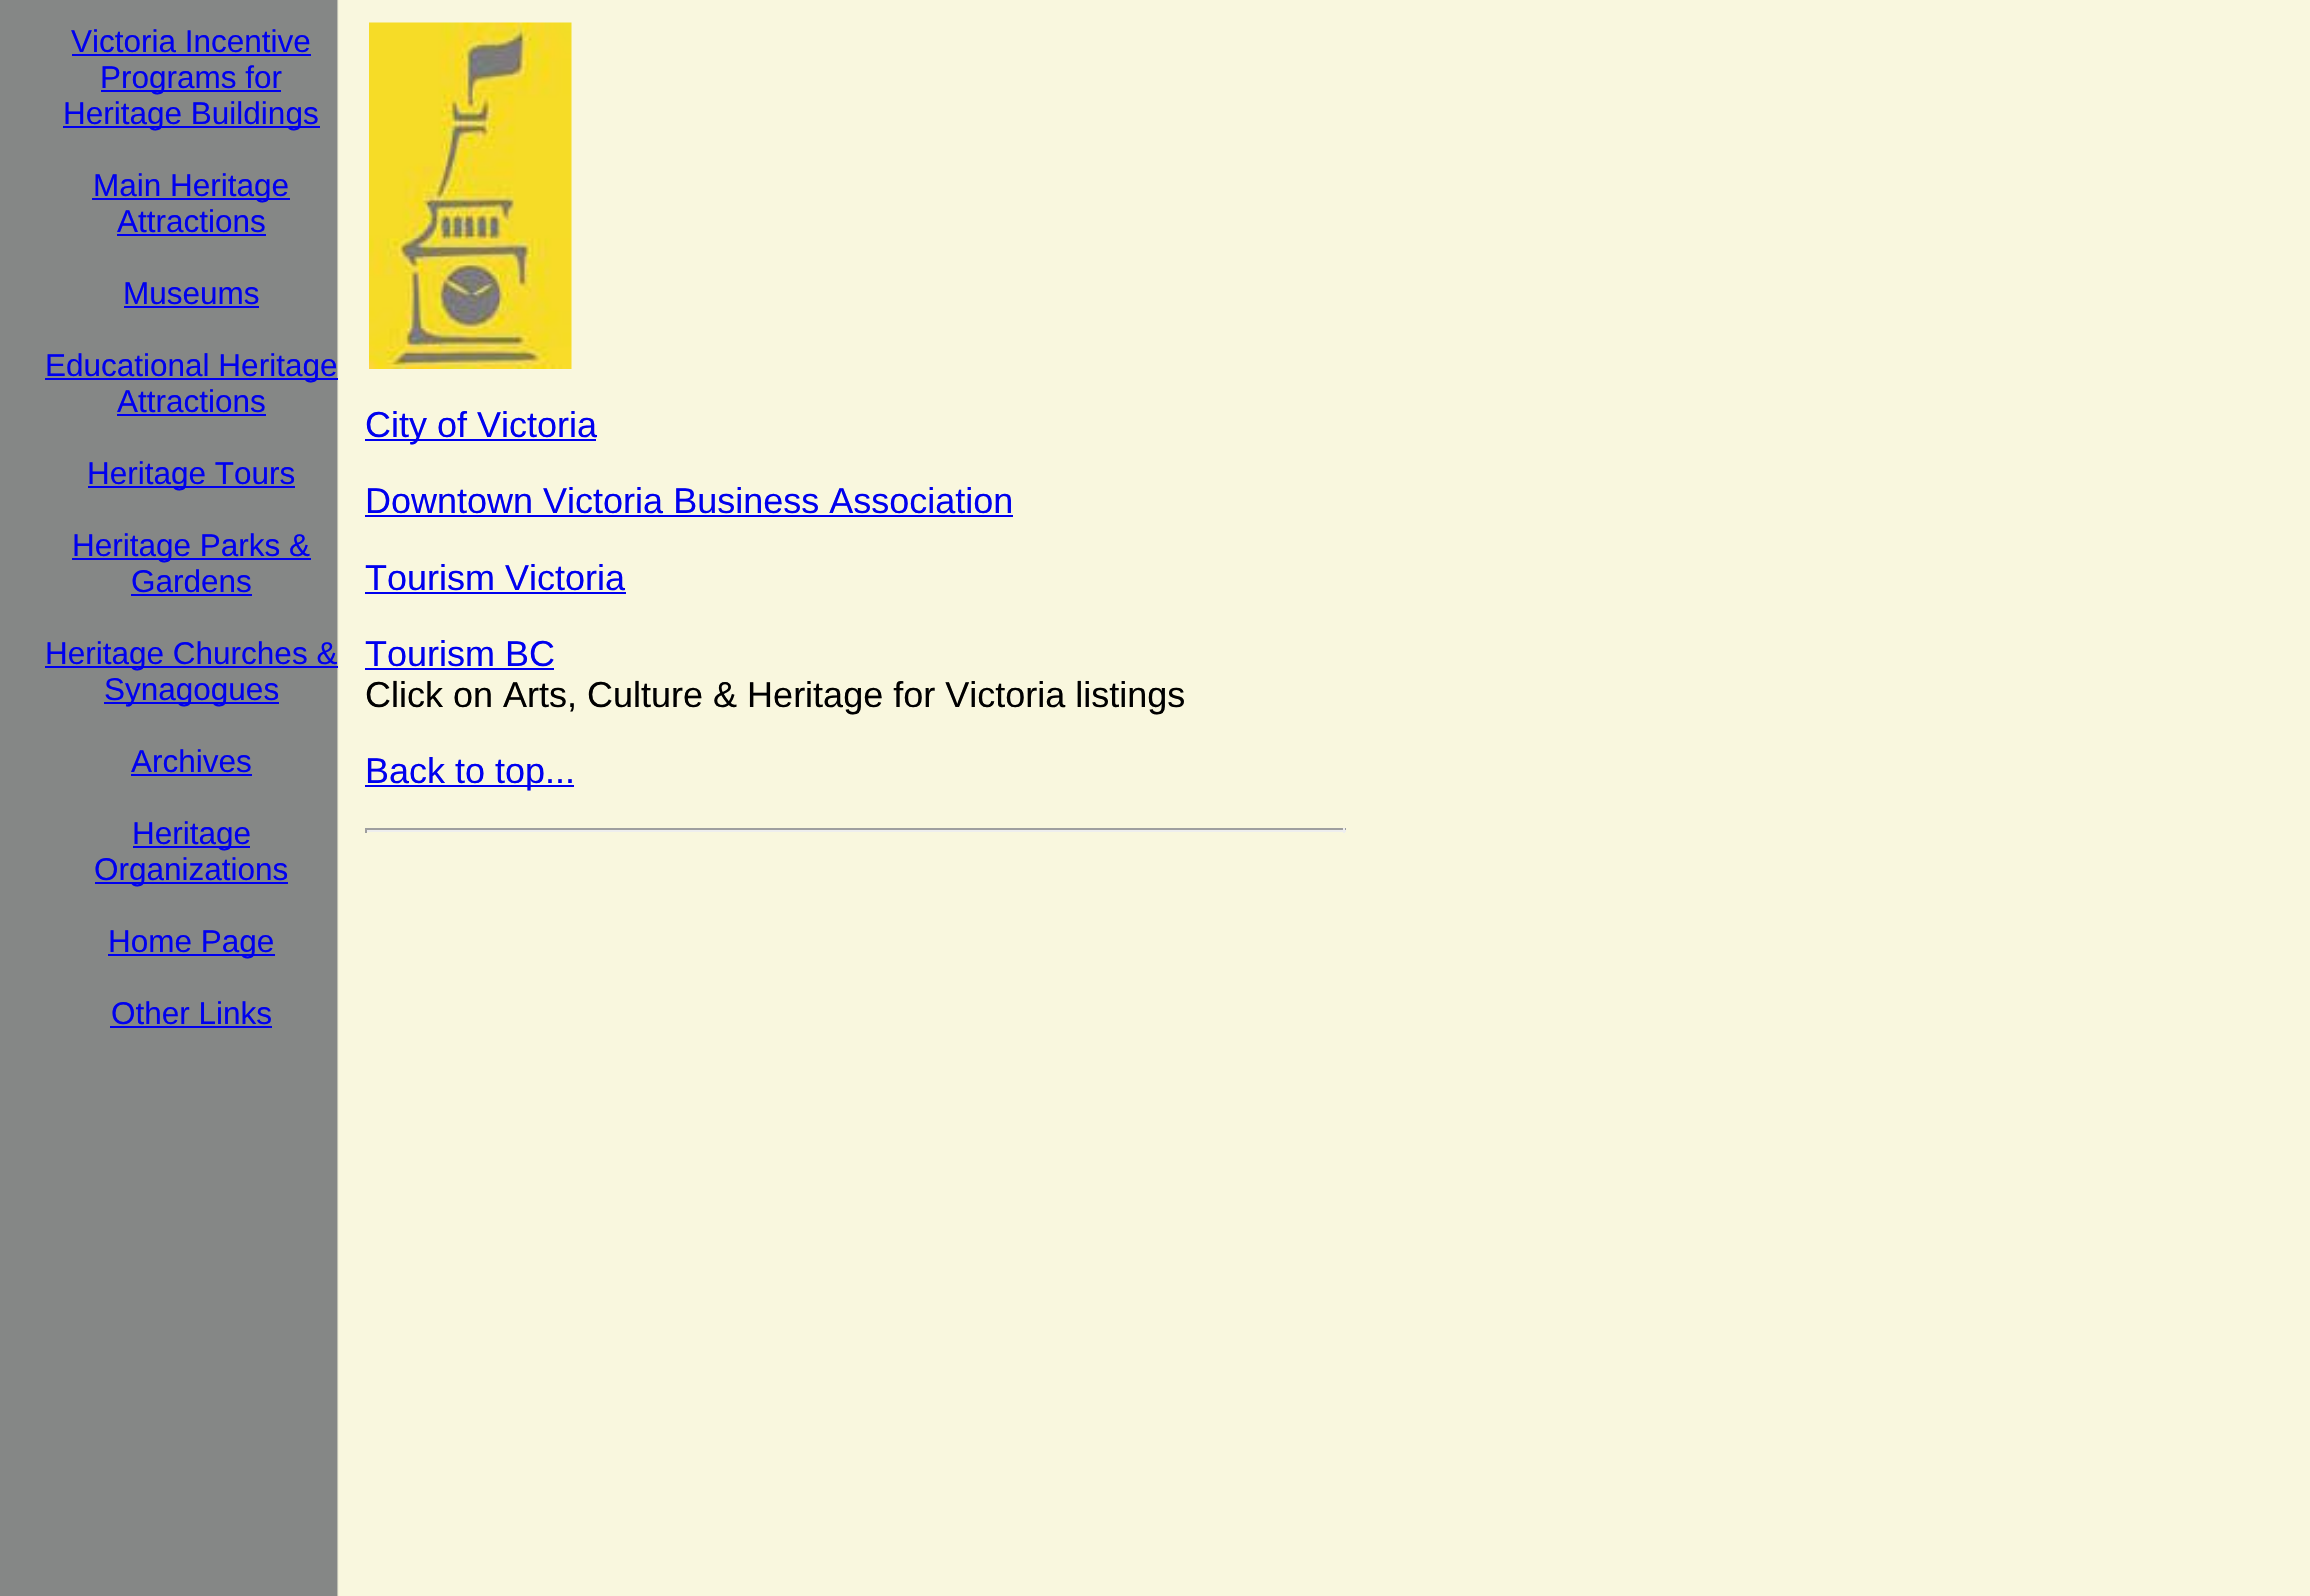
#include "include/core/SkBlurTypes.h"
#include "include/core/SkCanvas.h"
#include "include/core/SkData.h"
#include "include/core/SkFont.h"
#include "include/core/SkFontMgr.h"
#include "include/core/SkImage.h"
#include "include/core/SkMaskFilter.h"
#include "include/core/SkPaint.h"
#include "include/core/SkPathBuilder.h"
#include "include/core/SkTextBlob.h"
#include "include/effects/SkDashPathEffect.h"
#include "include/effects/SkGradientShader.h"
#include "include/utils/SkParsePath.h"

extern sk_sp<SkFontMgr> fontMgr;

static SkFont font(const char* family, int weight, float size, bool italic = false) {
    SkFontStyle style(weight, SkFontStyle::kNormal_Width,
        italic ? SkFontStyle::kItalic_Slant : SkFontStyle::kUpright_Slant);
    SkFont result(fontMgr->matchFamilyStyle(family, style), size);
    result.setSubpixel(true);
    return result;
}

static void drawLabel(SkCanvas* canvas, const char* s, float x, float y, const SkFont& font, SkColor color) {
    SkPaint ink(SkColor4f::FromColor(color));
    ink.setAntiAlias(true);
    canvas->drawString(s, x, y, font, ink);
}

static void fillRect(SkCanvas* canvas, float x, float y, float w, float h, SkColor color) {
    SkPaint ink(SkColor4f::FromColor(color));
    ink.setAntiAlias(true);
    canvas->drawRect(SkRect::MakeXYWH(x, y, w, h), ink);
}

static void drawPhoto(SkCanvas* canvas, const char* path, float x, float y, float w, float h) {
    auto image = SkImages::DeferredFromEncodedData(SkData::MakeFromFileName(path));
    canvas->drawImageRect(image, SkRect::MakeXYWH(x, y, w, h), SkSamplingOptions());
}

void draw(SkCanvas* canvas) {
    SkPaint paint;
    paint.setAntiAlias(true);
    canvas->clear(0xFFFFFFFF);
    drawPhoto(canvas, "assets/img1.png", 0, 0, 2310, 1596);
    SkFont font1 = font("Liberation Sans", 400, 31.5f);
    drawLabel(canvas, "Victoria Incentive", 71, 52, font1, 0xFF0000EE);
    fillRect(canvas, 72, 54, 239, 2, 0xFF0000EE);
    fillRect(canvas, 101, 90, 180, 2, 0xFF0000EE);
    drawLabel(canvas, "Programs for", 100, 88, font1, 0xFF0000EE);
    fillRect(canvas, 63, 126, 257, 2, 0xFF0000EE);
    drawLabel(canvas, "Heritage Buildings", 63, 124, font1, 0xFF0000EE);
    fillRect(canvas, 92, 198, 198, 2, 0xFF0000EE);
    drawLabel(canvas, "Main Heritage", 93, 196, font1, 0xFF0000EE);
    drawLabel(canvas, "Attractions", 117, 232, font1, 0xFF0000EE);
    fillRect(canvas, 117, 234, 149, 2, 0xFF0000EE);
    drawLabel(canvas, "Museums", 123, 304, font1, 0xFF0000EE);
    fillRect(canvas, 124, 306, 135, 2, 0xFF0000EE);
    fillRect(canvas, 45, 378, 293, 2, 0xFF0000EE);
    drawLabel(canvas, "Educational Heritage", 45, 376, font1, 0xFF0000EE);
    drawLabel(canvas, "Attractions", 117, 412, font1, 0xFF0000EE);
    fillRect(canvas, 117, 414, 149, 2, 0xFF0000EE);
    fillRect(canvas, 88, 486, 207, 2, 0xFF0000EE);
    drawLabel(canvas, "Heritage Tours", 87, 484, font1, 0xFF0000EE);
    fillRect(canvas, 72, 558, 239, 2, 0xFF0000EE);
    drawLabel(canvas, "Heritage Parks &", 72, 556, font1, 0xFF0000EE);
    drawLabel(canvas, "Gardens", 131, 592, font1, 0xFF0000EE);
    fillRect(canvas, 131, 594, 121, 2, 0xFF0000EE);
    fillRect(canvas, 45, 666, 293, 2, 0xFF0000EE);
    drawLabel(canvas, "Heritage Churches &", 45, 664, font1, 0xFF0000EE);
    fillRect(canvas, 104, 702, 175, 2, 0xFF0000EE);
    drawLabel(canvas, "Synagogues", 104, 700, font1, 0xFF0000EE);
    drawLabel(canvas, "Archives", 131, 772, font1, 0xFF0000EE);
    fillRect(canvas, 131, 774, 121, 2, 0xFF0000EE);
    fillRect(canvas, 133, 846, 117, 2, 0xFF0000EE);
    drawLabel(canvas, "Heritage", 132, 844, font1, 0xFF0000EE);
    fillRect(canvas, 95, 882, 193, 2, 0xFF0000EE);
    drawLabel(canvas, "Organizations", 94, 880, font1, 0xFF0000EE);
    fillRect(canvas, 108, 954, 167, 2, 0xFF0000EE);
    drawLabel(canvas, "Home Page", 108, 952, font1, 0xFF0000EE);
    drawLabel(canvas, "Other Links", 111, 1024, font1, 0xFF0000EE);
    fillRect(canvas, 110, 1026, 162, 2, 0xFF0000EE);
    drawPhoto(canvas, "assets/img2.png", 369, 22, 203, 347);
    fillRect(canvas, 365, 439, 231, 2, 0xFF0000EE);
    SkFont font2 = font("Liberation Sans", 400, 36);
    drawLabel(canvas, "City of Victoria", 365, 437, font2, 0xFF0000EE);
    drawLabel(canvas, "Downtown Victoria Business Association", 365, 513, font2, 0xFF0000EE);
    fillRect(canvas, 365, 515, 648, 2, 0xFF0000EE);
    drawLabel(canvas, "Tourism Victoria", 365, 590, font2, 0xFF0000EE);
    fillRect(canvas, 365, 592, 261, 2, 0xFF0000EE);
    drawLabel(canvas, "Tourism BC", 365, 666, font2, 0xFF0000EE);
    fillRect(canvas, 365, 668, 189, 2, 0xFF0000EE);
    drawLabel(canvas, "Click on Arts, Culture & Heritage for Victoria listings", 365, 707, font2, 0xFF000000);
    fillRect(canvas, 365, 785, 209, 2, 0xFF0000EE);
    drawLabel(canvas, "Back to top...", 365, 783, font2, 0xFF0000EE);
    fillRect(canvas, 365, 828, 981, 2, 0xFF9F9F9F);
    fillRect(canvas, 1343, 828, 2, 5, 0xFFEEEEEE);
    fillRect(canvas, 365, 830, 981, 2, 0xFFEEEEEE);
    fillRect(canvas, 365, 828, 2, 5, 0xFF9F9F9F);
}
